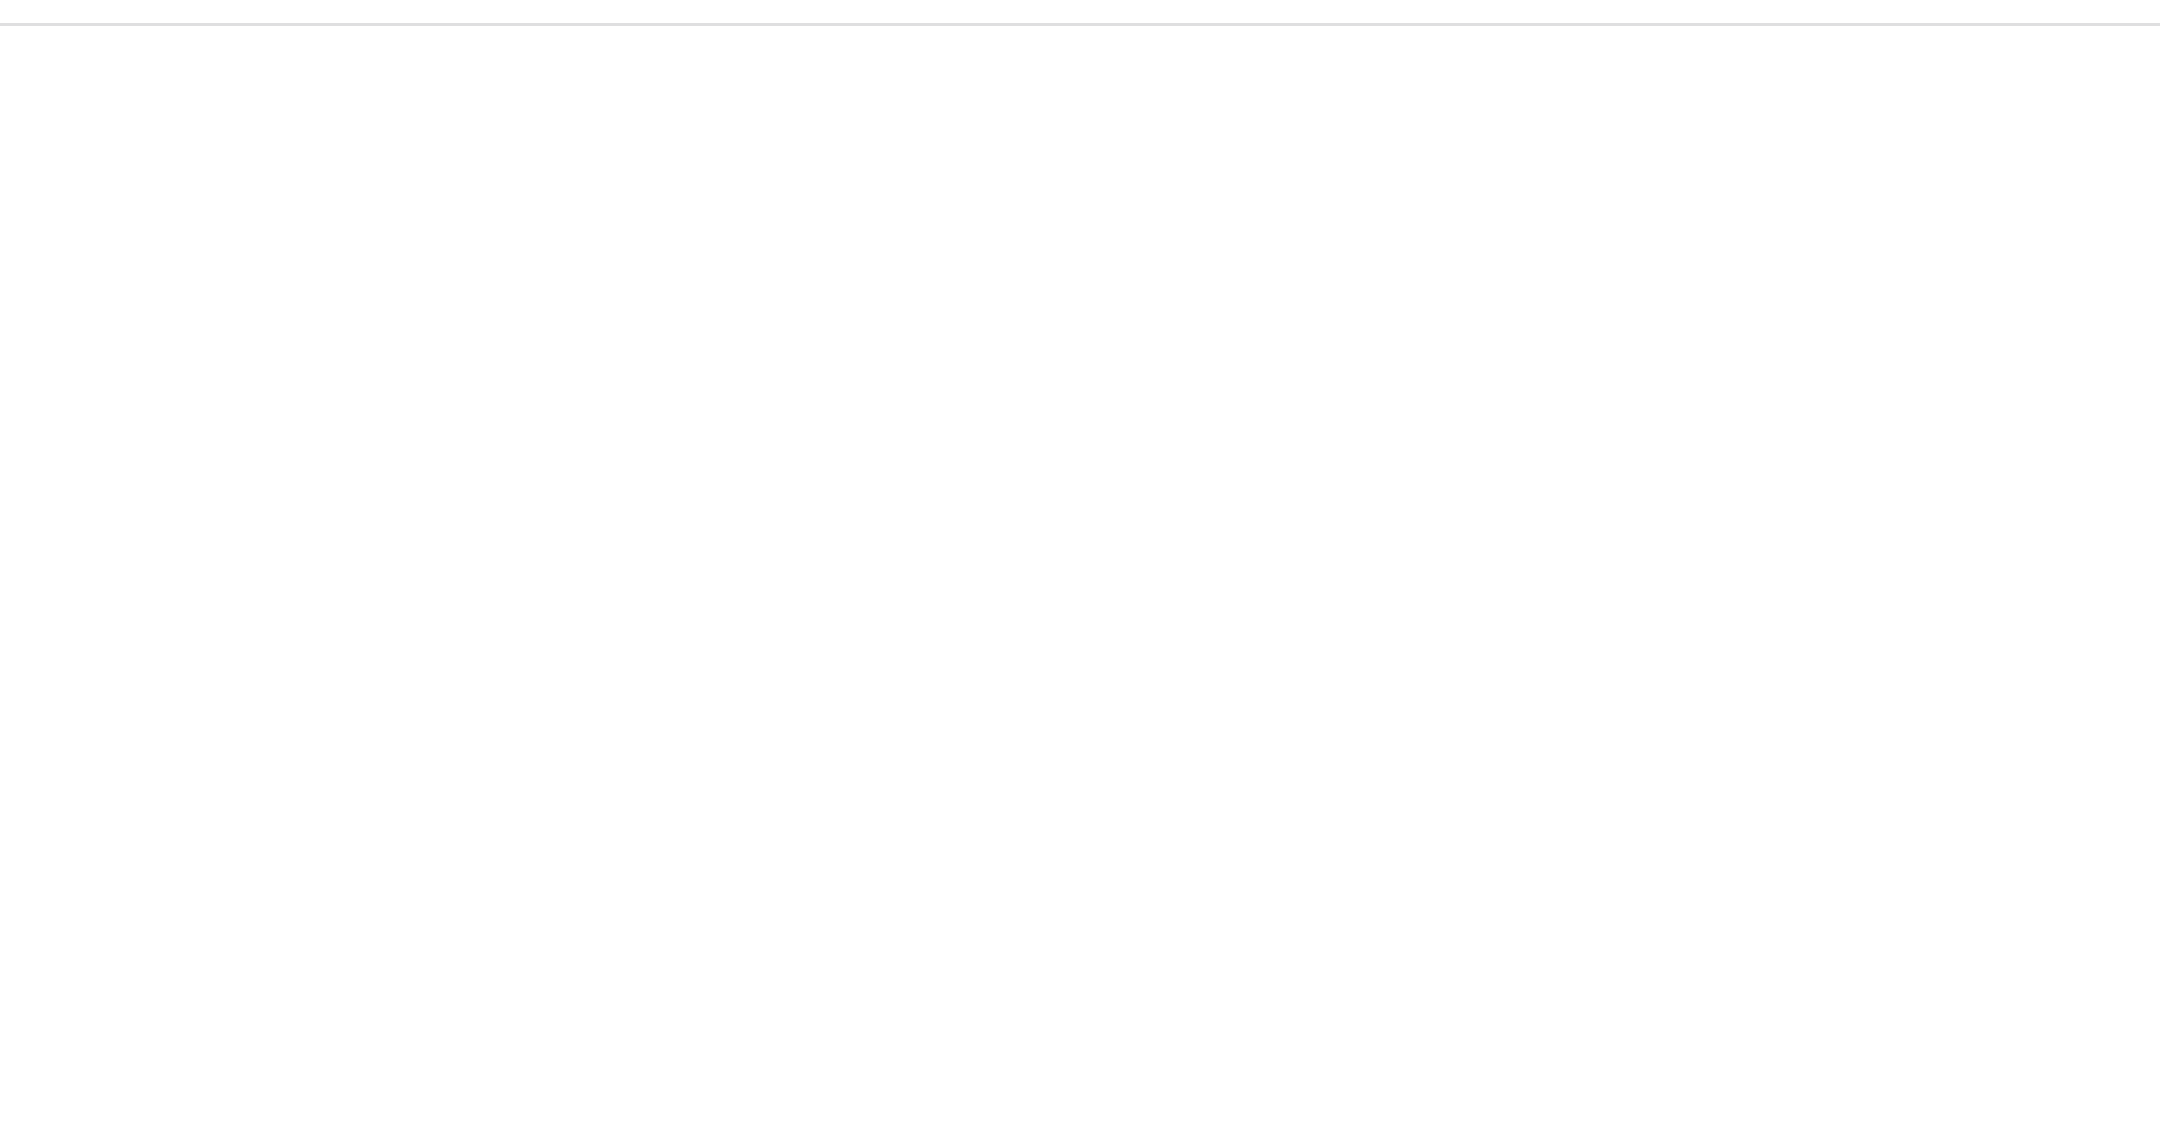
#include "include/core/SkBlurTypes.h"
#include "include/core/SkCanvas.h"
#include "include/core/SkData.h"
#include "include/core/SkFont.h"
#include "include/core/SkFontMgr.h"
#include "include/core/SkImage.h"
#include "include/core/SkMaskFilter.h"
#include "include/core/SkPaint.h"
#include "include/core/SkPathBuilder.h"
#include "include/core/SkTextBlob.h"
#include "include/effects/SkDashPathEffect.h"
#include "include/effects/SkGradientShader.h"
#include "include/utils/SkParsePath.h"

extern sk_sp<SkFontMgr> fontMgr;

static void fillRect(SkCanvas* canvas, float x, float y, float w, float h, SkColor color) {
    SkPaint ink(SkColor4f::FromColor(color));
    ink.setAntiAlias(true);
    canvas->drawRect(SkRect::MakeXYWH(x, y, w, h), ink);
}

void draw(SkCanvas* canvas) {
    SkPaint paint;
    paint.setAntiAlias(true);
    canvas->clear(0xFFFFFFFF);
    fillRect(canvas, 0, 23, 2160, 3, 0x26262B2E);
}
